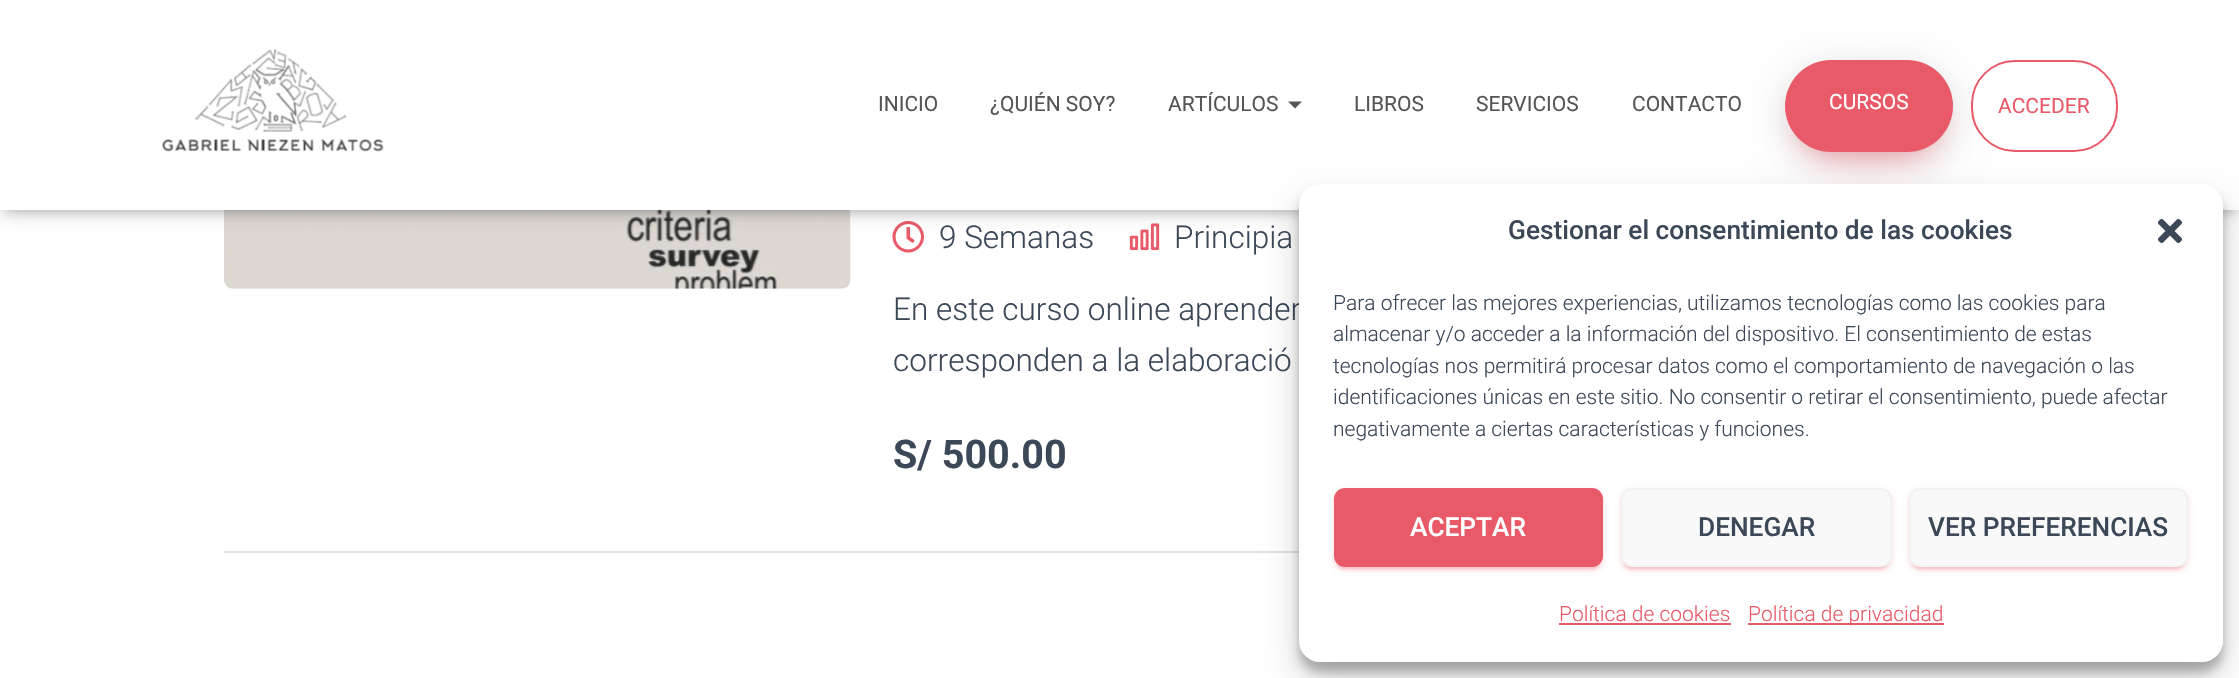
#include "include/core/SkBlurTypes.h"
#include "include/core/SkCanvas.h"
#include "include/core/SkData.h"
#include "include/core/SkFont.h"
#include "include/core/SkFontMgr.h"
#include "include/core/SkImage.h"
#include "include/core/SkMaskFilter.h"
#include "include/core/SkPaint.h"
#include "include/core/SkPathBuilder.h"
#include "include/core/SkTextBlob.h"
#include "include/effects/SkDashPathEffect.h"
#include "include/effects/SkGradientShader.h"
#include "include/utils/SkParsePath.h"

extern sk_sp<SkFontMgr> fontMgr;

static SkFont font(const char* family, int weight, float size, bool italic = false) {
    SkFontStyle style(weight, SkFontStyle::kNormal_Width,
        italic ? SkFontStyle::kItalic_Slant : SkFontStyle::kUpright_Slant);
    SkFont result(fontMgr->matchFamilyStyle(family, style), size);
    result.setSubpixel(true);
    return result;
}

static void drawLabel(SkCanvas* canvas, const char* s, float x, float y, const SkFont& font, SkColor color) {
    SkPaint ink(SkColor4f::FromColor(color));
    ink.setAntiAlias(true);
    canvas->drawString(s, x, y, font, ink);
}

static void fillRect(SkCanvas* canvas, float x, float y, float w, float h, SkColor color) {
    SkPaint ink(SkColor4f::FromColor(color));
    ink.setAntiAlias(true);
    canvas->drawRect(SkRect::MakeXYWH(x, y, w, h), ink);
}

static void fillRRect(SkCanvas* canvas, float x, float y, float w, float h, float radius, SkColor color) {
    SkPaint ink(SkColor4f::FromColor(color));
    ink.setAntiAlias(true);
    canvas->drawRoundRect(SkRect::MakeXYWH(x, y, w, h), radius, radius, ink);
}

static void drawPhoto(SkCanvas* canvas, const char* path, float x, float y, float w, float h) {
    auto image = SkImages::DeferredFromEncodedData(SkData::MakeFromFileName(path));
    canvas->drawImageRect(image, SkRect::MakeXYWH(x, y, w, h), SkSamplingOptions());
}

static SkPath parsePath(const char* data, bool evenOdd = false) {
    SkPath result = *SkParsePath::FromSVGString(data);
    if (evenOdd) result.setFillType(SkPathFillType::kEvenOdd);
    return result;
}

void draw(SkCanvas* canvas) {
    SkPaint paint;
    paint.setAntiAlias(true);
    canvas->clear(0xFFFFFFFF);
    drawPhoto(canvas, "assets/img2.png", 224, 210, 627, 79);
    drawPhoto(canvas, "assets/img3.png", 892, 221, 32, 32);
    drawPhoto(canvas, "assets/img4.png", 1129, 223, 31, 28);
    paint.setColor(0x1A000000);
    paint.setMaskFilter(SkMaskFilter::MakeBlur(kNormal_SkBlurStyle, 4.5f));
    canvas->drawRect(SkRect::MakeXYWH(4, 11, 2233, 203), paint);
    paint.setMaskFilter(nullptr);
    paint.setColor(0x1F000000);
    paint.setMaskFilter(SkMaskFilter::MakeBlur(kNormal_SkBlurStyle, 9));
    canvas->drawRect(SkRect::MakeXYWH(0, 2, 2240, 210), paint);
    paint.setMaskFilter(nullptr);
    paint.setColor(0x6B000000);
    paint.setMaskFilter(SkMaskFilter::MakeBlur(kNormal_SkBlurStyle, 9));
    canvas->drawRect(SkRect::MakeXYWH(11, 12, 2219, 189), paint);
    paint.setMaskFilter(nullptr);
    fillRect(canvas, 0, 0, 2239, 210, 0xFFFFFFFF);
    drawPhoto(canvas, "assets/img1.png", 162, 49, 222, 103);
    SkFont font1 = font("Roboto", 400, 21);
    drawLabel(canvas, "INICIO", 878, 111, font1, 0xFF555555);
    drawLabel(canvas, "¿QUIÉN SOY?", 990, 111, font1, 0xFF555555);
    drawLabel(canvas, "ARTÍCULOS", 1168, 111, font1, 0xFF555555);
    paint.setColor(0xFF555555);
    canvas->drawPath(parsePath("M1288 101.5H1302L1295 108.5Z"), paint);
    drawLabel(canvas, "LIBROS", 1354, 111, font1, 0xFF555555);
    drawLabel(canvas, "SERVICIOS", 1476, 111, font1, 0xFF555555);
    paint.setColor(0x1F000000);
    paint.setMaskFilter(SkMaskFilter::MakeBlur(kNormal_SkBlurStyle, 20));
    canvas->drawRoundRect(SkRect::MakeXYWH(1785, 67, 168, 92), 46, 46, paint);
    paint.setMaskFilter(nullptr);
    paint.setColor(0x6BE85A68);
    paint.setMaskFilter(SkMaskFilter::MakeBlur(kNormal_SkBlurStyle, 23));
    canvas->drawRoundRect(SkRect::MakeXYWH(1806, 105, 126, 51), 25.5f, 25.5f, paint);
    paint.setMaskFilter(nullptr);
    drawLabel(canvas, "CONTACTO", 1632, 111, font1, 0xFF555555);
    paint.setColor(0x33E85A68);
    paint.setMaskFilter(SkMaskFilter::MakeBlur(kNormal_SkBlurStyle, 9));
    canvas->drawRoundRect(SkRect::MakeXYWH(1794, 82, 150, 76), 38, 38, paint);
    paint.setMaskFilter(nullptr);
    fillRRect(canvas, 1785, 60, 168, 92, 46, 0xFFE85A68);
    drawLabel(canvas, "CURSOS", 1829, 109, font1, 0xFFFFFFFF);
    paint.setColor(0xFFFFFFFF);
    canvas->drawRoundRect(SkRect::MakeXYWH(1972, 61, 145, 90), 43, 43, paint);
    paint.setStroke(true);
    paint.setStrokeWidth(2);
    paint.setColor(0xFFE85A68);
    canvas->drawRoundRect(SkRect::MakeXYWH(1972, 61, 145, 90), 43, 43, paint);
    drawLabel(canvas, "ACCEDER", 1998, 113, font1, 0xFFE85A68);
    fillRect(canvas, 224, 551, 1075, 2, 0xFFE2E0DB);
    SkFont font2 = font("Roboto", 300, 31.5f);
    drawLabel(canvas, "9 Semanas", 939, 248, font2, 0xFF3C4858);
    drawLabel(canvas, "Principia", 1174, 248, font2, 0xFF3C4858);
    drawLabel(canvas, "En este curso online aprender", 893, 320, font2, 0xFF3C4858);
    drawLabel(canvas, "corresponden a la elaboració", 893, 371, font2, 0xFF3C4858);
    SkFont font3 = font("Roboto", 700, 39.5f);
    drawLabel(canvas, "S/ 500.00", 893, 468, font3, 0xFF3C4858);
    paint.setStroke(false);
    paint.setColor(0x3B000000);
    paint.setMaskFilter(SkMaskFilter::MakeBlur(kNormal_SkBlurStyle, 5));
    canvas->drawRoundRect(SkRect::MakeXYWH(1299, 194, 924, 478), 21, 21, paint);
    paint.setMaskFilter(nullptr);
    paint.setColor(0x30000000);
    paint.setMaskFilter(SkMaskFilter::MakeBlur(kNormal_SkBlurStyle, 17.5f));
    canvas->drawRoundRect(SkRect::MakeXYWH(1299, 201, 924, 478), 21, 21, paint);
    paint.setMaskFilter(nullptr);
    fillRRect(canvas, 1299, 184, 924, 478, 21, 0xFFFFFFFF);
    SkFont font4 = font("Roboto", 500, 26.25f);
    drawLabel(canvas, "Gestionar el consentimiento de las cookies", 1508, 239, font4, 0xFF3C4858);
    drawPhoto(canvas, "assets/img5.png", 2158, 219, 24, 24);
    SkFont font5 = font("Roboto", 300, 21);
    drawLabel(canvas, "Para ofrecer las mejores experiencias, utilizamos tecnologías como las cookies para", 1333, 310, font5, 0xFF3C4858);
    drawLabel(canvas, "almacenar y/o acceder a la información del dispositivo. El consentimiento de estas", 1333, 341, font5, 0xFF3C4858);
    drawLabel(canvas, "tecnologías nos permitirá procesar datos como el comportamiento de navegación o las", 1333, 373, font5, 0xFF3C4858);
    drawLabel(canvas, "identificaciones únicas en este sitio. No consentir o retirar el consentimiento, puede afectar", 1333, 404, font5, 0xFF3C4858);
    drawLabel(canvas, "negativamente a ciertas características y funciones.", 1333, 436, font5, 0xFF3C4858);
    paint.setColor(0x1FE85A68);
    paint.setMaskFilter(SkMaskFilter::MakeBlur(kNormal_SkBlurStyle, 4.5f));
    canvas->drawRoundRect(SkRect::MakeXYWH(1334, 490, 269, 79), 11, 11, paint);
    paint.setMaskFilter(nullptr);
    paint.setColor(0x33E85A68);
    paint.setMaskFilter(SkMaskFilter::MakeBlur(kNormal_SkBlurStyle, 1));
    canvas->drawRoundRect(SkRect::MakeXYWH(1337, 497, 263, 72), 7, 7, paint);
    paint.setMaskFilter(nullptr);
    paint.setColor(0x24E85A68);
    paint.setMaskFilter(SkMaskFilter::MakeBlur(kNormal_SkBlurStyle, 2));
    canvas->drawRoundRect(SkRect::MakeXYWH(1334, 492, 269, 79), 11, 11, paint);
    paint.setMaskFilter(nullptr);
    paint.setColor(0xFFE85A68);
    canvas->drawRoundRect(SkRect::MakeXYWH(1335, 489, 267, 77), 10, 10, paint);
    paint.setStroke(true);
    canvas->drawRoundRect(SkRect::MakeXYWH(1335, 489, 267, 77), 10, 10, paint);
    drawLabel(canvas, "ACEPTAR", 1410, 536, font4, 0xFFFFFFFF);
    paint.setStroke(false);
    paint.setColor(0x1FE85A68);
    paint.setMaskFilter(SkMaskFilter::MakeBlur(kNormal_SkBlurStyle, 4.5f));
    canvas->drawRoundRect(SkRect::MakeXYWH(1621, 490, 271, 79), 11, 11, paint);
    paint.setMaskFilter(nullptr);
    paint.setColor(0x33E85A68);
    paint.setMaskFilter(SkMaskFilter::MakeBlur(kNormal_SkBlurStyle, 1));
    canvas->drawRoundRect(SkRect::MakeXYWH(1624, 497, 264, 72), 7, 7, paint);
    paint.setMaskFilter(nullptr);
    paint.setColor(0x24E85A68);
    paint.setMaskFilter(SkMaskFilter::MakeBlur(kNormal_SkBlurStyle, 2));
    canvas->drawRoundRect(SkRect::MakeXYWH(1621, 492, 271, 79), 11, 11, paint);
    paint.setMaskFilter(nullptr);
    paint.setColor(0xFFF9F9F9);
    canvas->drawRoundRect(SkRect::MakeXYWH(1622, 489, 269, 77), 10, 10, paint);
    paint.setStroke(true);
    paint.setColor(0xFFF2F2F2);
    canvas->drawRoundRect(SkRect::MakeXYWH(1622, 489, 269, 77), 10, 10, paint);
    drawLabel(canvas, "DENEGAR", 1698, 536, font4, 0xFF3C4858);
    paint.setStroke(false);
    paint.setColor(0x1FE85A68);
    paint.setMaskFilter(SkMaskFilter::MakeBlur(kNormal_SkBlurStyle, 4.5f));
    canvas->drawRoundRect(SkRect::MakeXYWH(1909, 490, 279, 79), 11, 11, paint);
    paint.setMaskFilter(nullptr);
    paint.setColor(0x33E85A68);
    paint.setMaskFilter(SkMaskFilter::MakeBlur(kNormal_SkBlurStyle, 1));
    canvas->drawRoundRect(SkRect::MakeXYWH(1913, 497, 271, 72), 7, 7, paint);
    paint.setMaskFilter(nullptr);
    paint.setColor(0x24E85A68);
    paint.setMaskFilter(SkMaskFilter::MakeBlur(kNormal_SkBlurStyle, 2));
    canvas->drawRoundRect(SkRect::MakeXYWH(1909, 492, 279, 79), 11, 11, paint);
    paint.setMaskFilter(nullptr);
    paint.setColor(0xFFF9F9F9);
    canvas->drawRoundRect(SkRect::MakeXYWH(1910, 489, 277, 77), 10, 10, paint);
    paint.setStroke(true);
    paint.setColor(0xFFF2F2F2);
    canvas->drawRoundRect(SkRect::MakeXYWH(1910, 489, 277, 77), 10, 10, paint);
    drawLabel(canvas, "VER PREFERENCIAS", 1928, 536, font4, 0xFF3C4858);
    drawLabel(canvas, "Política de cookies", 1559, 621, font5, 0xFFE85A68);
    fillRect(canvas, 1559, 623, 172, 2, 0xFFE85A68);
    fillRect(canvas, 1748, 623, 196, 2, 0xFFE85A68);
    drawLabel(canvas, "Política de privacidad", 1748, 621, font5, 0xFFE85A68);
}
